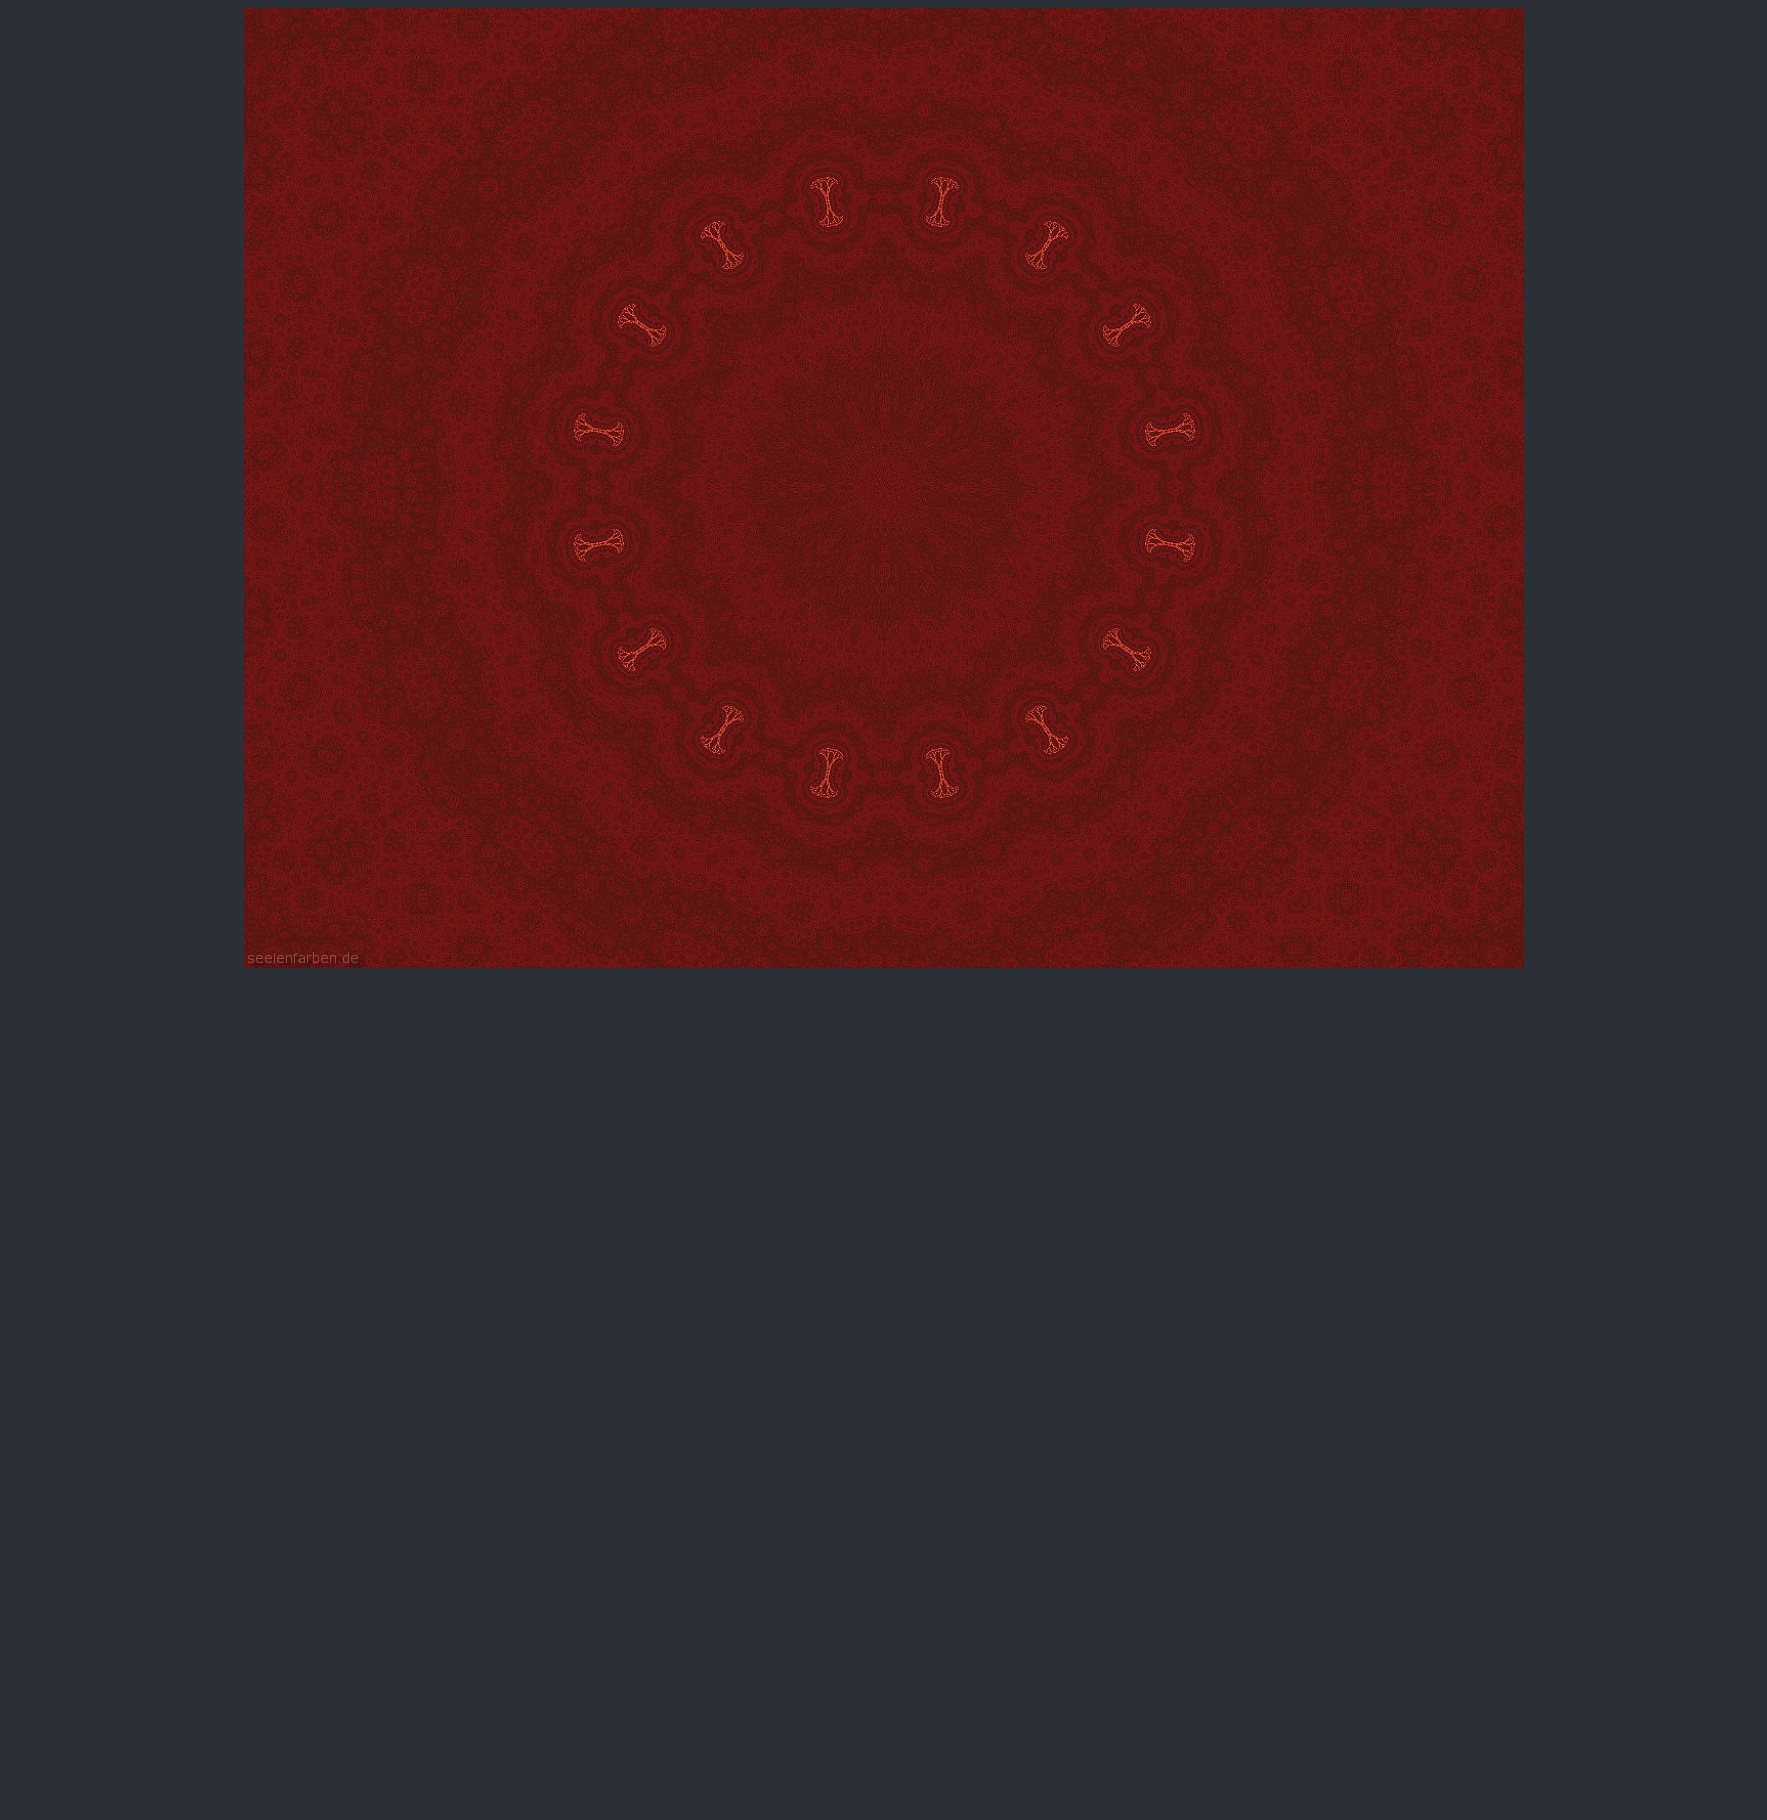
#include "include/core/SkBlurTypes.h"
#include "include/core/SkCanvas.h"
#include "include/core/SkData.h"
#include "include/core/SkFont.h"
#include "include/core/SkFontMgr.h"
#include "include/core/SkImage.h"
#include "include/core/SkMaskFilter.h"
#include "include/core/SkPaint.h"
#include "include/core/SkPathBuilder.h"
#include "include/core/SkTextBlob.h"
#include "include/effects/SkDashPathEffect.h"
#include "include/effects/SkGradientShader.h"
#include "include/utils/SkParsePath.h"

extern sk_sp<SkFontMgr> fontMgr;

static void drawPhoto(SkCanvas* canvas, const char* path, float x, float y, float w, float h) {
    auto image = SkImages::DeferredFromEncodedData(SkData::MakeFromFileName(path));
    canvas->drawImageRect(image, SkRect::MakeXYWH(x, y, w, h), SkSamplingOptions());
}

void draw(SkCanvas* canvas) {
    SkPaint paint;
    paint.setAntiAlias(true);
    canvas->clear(0xFF2B3037);
    drawPhoto(canvas, "assets/img1.png", 244, 8, 1280, 960);
}
